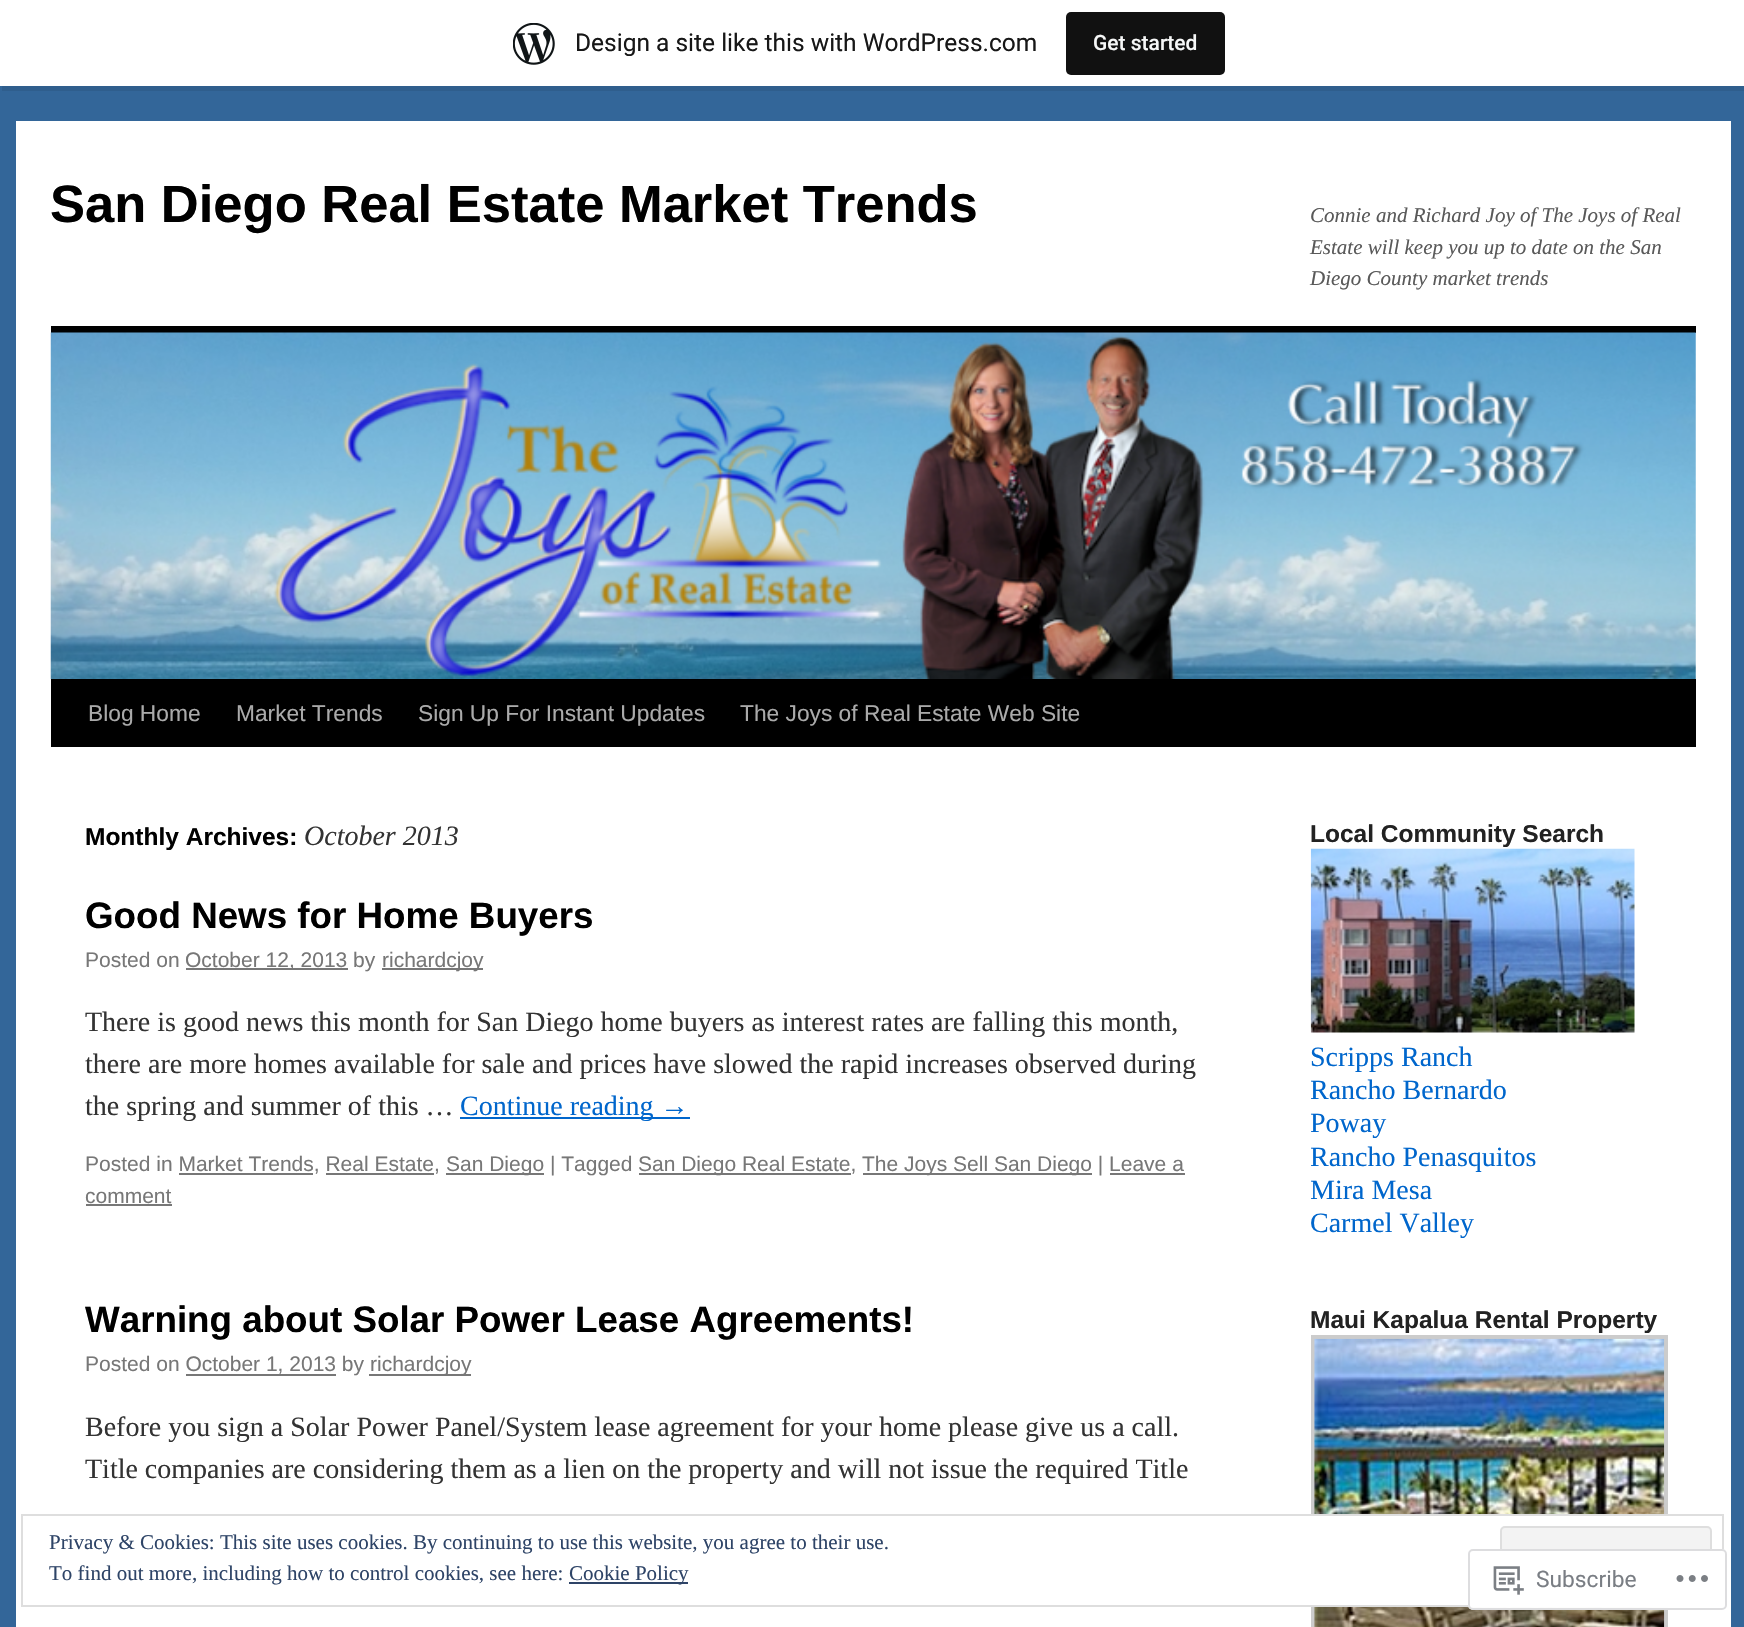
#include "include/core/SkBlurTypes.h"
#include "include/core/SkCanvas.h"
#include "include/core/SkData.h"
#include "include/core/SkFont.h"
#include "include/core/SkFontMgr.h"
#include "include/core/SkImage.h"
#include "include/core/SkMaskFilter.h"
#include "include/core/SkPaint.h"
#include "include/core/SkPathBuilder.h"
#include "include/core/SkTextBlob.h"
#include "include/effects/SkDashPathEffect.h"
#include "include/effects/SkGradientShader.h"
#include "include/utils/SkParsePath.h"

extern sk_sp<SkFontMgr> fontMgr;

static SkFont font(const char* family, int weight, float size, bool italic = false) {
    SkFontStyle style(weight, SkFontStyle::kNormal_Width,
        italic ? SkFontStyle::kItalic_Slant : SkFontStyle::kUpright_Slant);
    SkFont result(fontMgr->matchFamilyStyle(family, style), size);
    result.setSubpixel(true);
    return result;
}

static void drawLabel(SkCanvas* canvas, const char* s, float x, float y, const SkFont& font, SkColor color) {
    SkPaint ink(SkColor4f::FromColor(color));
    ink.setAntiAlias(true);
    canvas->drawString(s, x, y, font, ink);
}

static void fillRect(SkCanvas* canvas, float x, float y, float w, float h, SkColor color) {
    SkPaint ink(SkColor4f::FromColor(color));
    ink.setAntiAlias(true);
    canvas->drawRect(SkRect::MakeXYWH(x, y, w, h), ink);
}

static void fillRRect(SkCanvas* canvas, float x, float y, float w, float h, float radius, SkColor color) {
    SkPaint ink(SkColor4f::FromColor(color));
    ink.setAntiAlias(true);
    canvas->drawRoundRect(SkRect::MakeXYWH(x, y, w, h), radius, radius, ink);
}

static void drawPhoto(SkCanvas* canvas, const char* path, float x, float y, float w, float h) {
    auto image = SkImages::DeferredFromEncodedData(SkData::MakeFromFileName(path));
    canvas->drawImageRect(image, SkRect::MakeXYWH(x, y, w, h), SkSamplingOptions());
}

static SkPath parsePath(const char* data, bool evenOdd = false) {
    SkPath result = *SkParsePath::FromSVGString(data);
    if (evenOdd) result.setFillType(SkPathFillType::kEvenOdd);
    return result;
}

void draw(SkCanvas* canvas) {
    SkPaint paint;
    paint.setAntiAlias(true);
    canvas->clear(0xFF336699);
    paint.setColor(0x14000000);
    canvas->drawPath(parsePath("M2 86V91H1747V5H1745V86Z"), paint);
    fillRect(canvas, 0, 0, 1744, 86, 0xFFFFFFFF);
    drawPhoto(canvas, "assets/img1.png", 513, 23, 42, 42);
    SkFont font1 = font("Roboto", 400, 24.5f);
    drawLabel(canvas, "Design a site like this with WordPress.com", 575, 51, font1, 0xFF171717);
    fillRRect(canvas, 1066, 12, 159, 63, 5, 0xFF111111);
    SkFont font2 = font("Roboto", 500, 21);
    drawLabel(canvas, "Get started", 1093, 50, font2, 0xFFF6F7F7);
    fillRect(canvas, 16, 121, 1715, 1506, 0xFFFFFFFF);
    SkFont font3 = font("Liberation Sans", 700, 52.5f);
    drawLabel(canvas, "San Diego Real Estate Market Trends", 50, 222, font3, 0xFF000000);
    SkFont font4 = font("Liberation Serif", 400, 21, true);
    drawLabel(canvas, "Connie and Richard Joy of The Joys of Real", 1310, 222, font4, 0xFF595959);
    drawLabel(canvas, "Estate will keep you up to date on the San", 1310, 254, font4, 0xFF595959);
    drawLabel(canvas, "Diego County market trends", 1310, 285, font4, 0xFF595959);
    fillRect(canvas, 51, 326, 1645, 7, 0xFF000000);
    fillRect(canvas, 51, 679, 1645, 68, 0xFF000000);
    drawPhoto(canvas, "assets/img2.png", 50, 332, 1646, 347);
    SkFont font5 = font("Liberation Sans", 400, 22.75f);
    drawLabel(canvas, "Blog Home", 88, 721, font5, 0xFFAAAAAA);
    drawLabel(canvas, "Market Trends", 236, 721, font5, 0xFFAAAAAA);
    drawLabel(canvas, "Sign Up For Instant Updates", 418, 721, font5, 0xFFAAAAAA);
    drawLabel(canvas, "The Joys of Real Estate Web Site", 740, 721, font5, 0xFFAAAAAA);
    SkFont font6 = font("Liberation Sans", 700, 24.5f);
    drawLabel(canvas, "Monthly Archives:", 85, 845, font6, 0xFF000000);
    SkFont font7 = font("Liberation Serif", 400, 28, true);
    drawLabel(canvas, "October 2013", 304, 845, font7, 0xFF333333);
    SkFont font8 = font("Liberation Sans", 700, 36.75f);
    drawLabel(canvas, "Good News for Home Buyers", 85, 928, font8, 0xFF000000);
    SkFont font9 = font("Liberation Sans", 400, 21);
    drawLabel(canvas, "Posted on", 85, 967, font9, 0xFF777777);
    fillRect(canvas, 186, 968, 162, 2, 0xFF777777);
    drawLabel(canvas, "October 12, 2013 by", 185, 967, font9, 0xFF777777);
    fillRect(canvas, 382, 968, 101, 2, 0xFF777777);
    drawLabel(canvas, "richardcjoy", 382, 967, font9, 0xFF777777);
    SkFont font10 = font("Liberation Serif", 400, 28);
    drawLabel(canvas, "There is good news this month for San Diego home buyers as interest rates are falling this month,", 85, 1031, font10, 0xFF333333);
    drawLabel(canvas, "there are more homes available for sale and prices have slowed the rapid increases observed during", 85, 1073, font10, 0xFF333333);
    drawLabel(canvas, "the spring and summer of this …", 85, 1115, font10, 0xFF333333);
    fillRect(canvas, 460, 1117, 230, 2, 0xFF0066CC);
    drawLabel(canvas, "Continue reading →", 460, 1115, font10, 0xFF0066CC);
    drawLabel(canvas, "Posted in Market Trends, Real Estate,", 85, 1171, font9, 0xFF777777);
    fillRect(canvas, 179, 1173, 134, 2, 0xFF777777);
    fillRect(canvas, 326, 1173, 108, 2, 0xFF777777);
    fillRect(canvas, 446, 1173, 98, 2, 0xFF777777);
    drawLabel(canvas, "San Diego | Tagged", 446, 1171, font9, 0xFF777777);
    fillRect(canvas, 639, 1173, 212, 2, 0xFF777777);
    drawLabel(canvas, "San Diego Real Estate,", 638, 1171, font9, 0xFF777777);
    fillRect(canvas, 863, 1173, 229, 2, 0xFF777777);
    drawLabel(canvas, "The Joys Sell San Diego | Leave a", 862, 1171, font9, 0xFF777777);
    drawLabel(canvas, "comment", 85, 1203, font9, 0xFF777777);
    fillRect(canvas, 1110, 1173, 75, 2, 0xFF777777);
    fillRect(canvas, 86, 1204, 86, 2, 0xFF777777);
    drawLabel(canvas, "Warning about Solar Power Lease Agreements!", 85, 1332, font8, 0xFF000000);
    drawLabel(canvas, "Posted on October 1, 2013 by", 85, 1371, font9, 0xFF777777);
    fillRect(canvas, 369, 1374, 102, 2, 0xFF777777);
    drawLabel(canvas, "richardcjoy", 370, 1371, font9, 0xFF777777);
    fillRect(canvas, 186, 1374, 150, 2, 0xFF777777);
    drawLabel(canvas, "Before you sign a Solar Power Panel/System lease agreement for your home please give us a call.", 85, 1436, font10, 0xFF333333);
    drawLabel(canvas, "Title companies are considering them as a lien on the property and will not issue the required Title", 85, 1478, font10, 0xFF333333);
    drawLabel(canvas, "Local Community Search", 1310, 842, font6, 0xFF222222);
    drawPhoto(canvas, "assets/img3.png", 1310, 848, 325, 185);
    drawLabel(canvas, "Scripps Ranch", 1310, 1066, font10, 0xFF0066CC);
    canvas->save();
    canvas->clipRect(SkRect::MakeXYWH(1311, 817, 385, 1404));
    drawLabel(canvas, "Rancho Bernardo", 1310, 1099, font10, 0xFF0066CC);
    drawLabel(canvas, "Poway", 1310, 1132, font10, 0xFF0066CC);
    drawLabel(canvas, "Rancho Penasquitos", 1310, 1166, font10, 0xFF0066CC);
    drawLabel(canvas, "Mira Mesa", 1310, 1199, font10, 0xFF0066CC);
    canvas->restore();
    drawLabel(canvas, "Carmel Valley", 1310, 1232, font10, 0xFF0066CC);
    drawLabel(canvas, "Maui Kapalua Rental Property", 1310, 1328, font6, 0xFF222222);
    paint.setStroke(true);
    paint.setStrokeWidth(4);
    paint.setColor(0xFFCCCCCC);
    canvas->drawRect(SkRect::MakeXYWH(1313, 1337, 353, 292), paint);
    drawPhoto(canvas, "assets/img4.png", 1314, 1338, 351, 289);
    fillRect(canvas, 1311, 1516, 357, 89, 0xFFFFFFFF);
    paint.setStrokeWidth(2);
    paint.setColor(0xFFDEDEDE);
    canvas->drawRect(SkRect::MakeXYWH(22, 1515, 1701, 91), paint);
    SkFont font11 = font("Liberation Serif", 400, 21);
    drawLabel(canvas, "Privacy & Cookies: This site uses cookies. By continuing to use this website, you agree to their use.", 49, 1549, font11, 0xFF2E4467);
    paint.setStroke(false);
    paint.setColor(0xFFF3F3F3);
    canvas->drawRoundRect(SkRect::MakeXYWH(1501, 1527, 210, 66), 4, 4, paint);
    paint.setStroke(true);
    paint.setColor(0xFFDEDEDE);
    canvas->drawRoundRect(SkRect::MakeXYWH(1501, 1527, 210, 66), 4, 4, paint);
    drawLabel(canvas, "To find out more, including how to control cookies, see here:", 49, 1580, font11, 0xFF2E4467);
    fillRect(canvas, 569, 1582, 119, 2, 0xFF2E4467);
    drawLabel(canvas, "Cookie Policy", 569, 1580, font11, 0xFF2E4467);
    fillRRect(canvas, 1468, 1549, 259, 61, 5, 0xFAFFFFFF);
    paint.setColor(0xFADCDCDE);
    canvas->drawRoundRect(SkRect::MakeXYWH(1469, 1550, 257, 59), 4, 4, paint);
    drawPhoto(canvas, "assets/img5.png", 1493, 1566, 31, 29);
    SkFont font12 = font("Roboto", 400, 22.75f);
    drawLabel(canvas, "Subscribe", 1536, 1587, font12, 0xFF7A7E84);
    drawPhoto(canvas, "assets/img6.png", 1676, 1575, 32, 7);
}
